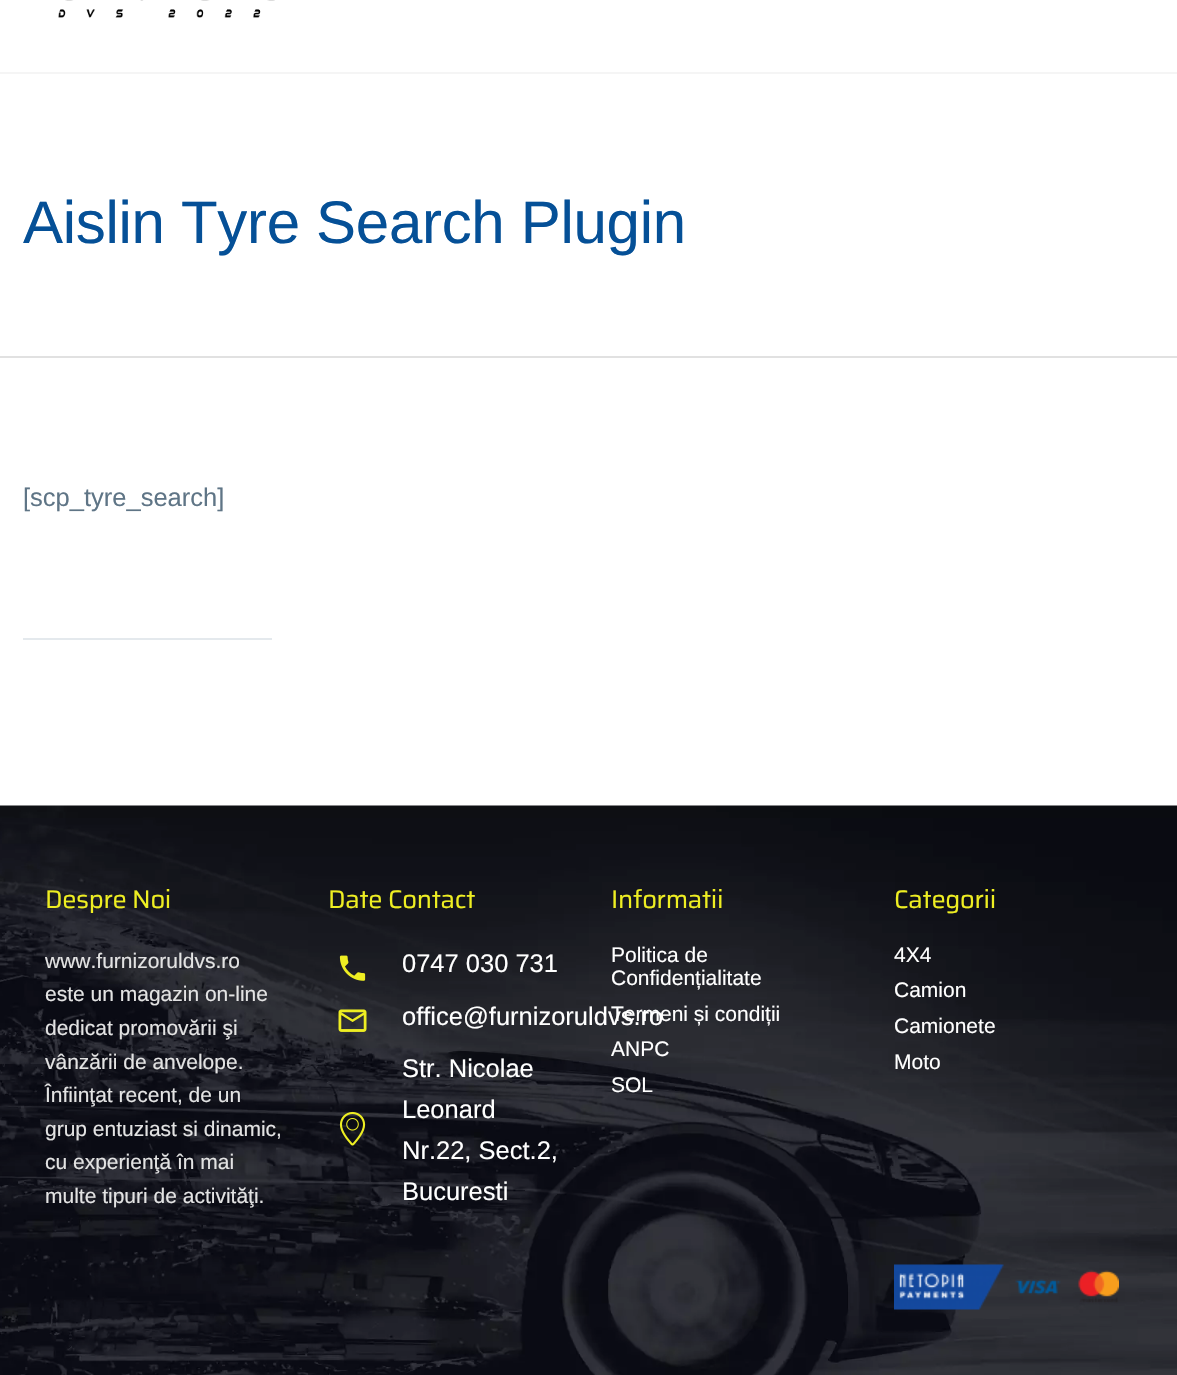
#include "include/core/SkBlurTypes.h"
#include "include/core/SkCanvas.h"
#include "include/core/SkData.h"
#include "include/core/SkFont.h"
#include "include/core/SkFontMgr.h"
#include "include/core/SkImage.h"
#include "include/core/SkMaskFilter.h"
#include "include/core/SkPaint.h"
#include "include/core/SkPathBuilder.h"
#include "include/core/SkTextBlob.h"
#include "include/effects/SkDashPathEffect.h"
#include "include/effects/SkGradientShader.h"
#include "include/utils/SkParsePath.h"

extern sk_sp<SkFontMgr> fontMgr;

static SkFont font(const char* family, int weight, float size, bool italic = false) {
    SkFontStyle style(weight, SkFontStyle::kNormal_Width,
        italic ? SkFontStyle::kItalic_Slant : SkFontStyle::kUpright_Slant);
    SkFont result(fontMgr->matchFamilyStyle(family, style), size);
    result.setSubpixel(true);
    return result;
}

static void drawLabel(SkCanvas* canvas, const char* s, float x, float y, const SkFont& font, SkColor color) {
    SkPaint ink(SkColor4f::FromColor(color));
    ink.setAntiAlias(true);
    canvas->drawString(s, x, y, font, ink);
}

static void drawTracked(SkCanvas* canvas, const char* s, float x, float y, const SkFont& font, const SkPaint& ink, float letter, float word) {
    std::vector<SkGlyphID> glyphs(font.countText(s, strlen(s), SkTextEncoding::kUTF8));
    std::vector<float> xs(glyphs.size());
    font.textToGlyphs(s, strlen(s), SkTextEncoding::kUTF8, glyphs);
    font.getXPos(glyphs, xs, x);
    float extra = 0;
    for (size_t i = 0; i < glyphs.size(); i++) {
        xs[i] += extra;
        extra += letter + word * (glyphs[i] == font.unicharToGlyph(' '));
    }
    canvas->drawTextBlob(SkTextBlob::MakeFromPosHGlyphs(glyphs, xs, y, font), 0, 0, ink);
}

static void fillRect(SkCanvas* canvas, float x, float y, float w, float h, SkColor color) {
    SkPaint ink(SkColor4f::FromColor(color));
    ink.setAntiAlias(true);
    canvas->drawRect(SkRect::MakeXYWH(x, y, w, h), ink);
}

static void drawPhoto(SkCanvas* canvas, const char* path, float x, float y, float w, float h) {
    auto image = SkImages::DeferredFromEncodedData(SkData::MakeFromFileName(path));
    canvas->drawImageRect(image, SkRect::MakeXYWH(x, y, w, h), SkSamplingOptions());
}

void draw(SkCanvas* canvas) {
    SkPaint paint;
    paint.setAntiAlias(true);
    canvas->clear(0xFFFFFFFF);
    fillRect(canvas, 0, 72, 1177, 2, 0xFFF5F5F5);
    drawPhoto(canvas, "assets/img1.png", 58, 0, 217, 18);
    fillRect(canvas, 0, 356, 1177, 2, 0xFFE1E1E1);
    SkFont font1 = font("Liberation Sans", 400, 60);
    paint.setColor(0xFF055097);
    drawTracked(canvas, "Aislin Tyre Search Plugin", 23, 243, font1, paint, -0.3f, 0);
    SkFont font2 = font("Liberation Sans", 400, 25.5f);
    drawLabel(canvas, "[scp_tyre_search]", 23, 506, font2, 0xFF5F7586);
    fillRect(canvas, 23, 638, 249, 2, 0xFFE4E9ED);
    drawPhoto(canvas, "assets/img2.png", 0, 805, 1177, 570);
    SkFont font3 = font("Saira", 400, 25.5f);
    paint.setColor(0xFFEEEE22);
    drawTracked(canvas, "Despre Noi", 45, 908, font3, paint, -0.3f, 0);
    SkFont font4 = font("Liberation Sans", 400, 21);
    drawLabel(canvas, "www.furnizoruldvs.ro", 45, 968, font4, 0xFFE3E3E3);
    drawLabel(canvas, "este un magazin on-line", 45, 1001, font4, 0xFFE3E3E3);
    drawLabel(canvas, "dedicat promovării şi", 45, 1035, font4, 0xFFE3E3E3);
    drawLabel(canvas, "vânzării de anvelope.", 45, 1069, font4, 0xFFE3E3E3);
    drawLabel(canvas, "Înfiinţat recent, de un", 45, 1102, font4, 0xFFE3E3E3);
    drawLabel(canvas, "grup entuziast si dinamic,", 45, 1136, font4, 0xFFE3E3E3);
    drawLabel(canvas, "cu experienţă în mai", 45, 1169, font4, 0xFFE3E3E3);
    drawLabel(canvas, "multe tipuri de activităţi.", 45, 1203, font4, 0xFFE3E3E3);
    drawTracked(canvas, "Date Contact", 328, 908, font3, paint, -0.3f, 0);
    drawPhoto(canvas, "assets/img3.png", 339, 955, 27, 26);
    drawLabel(canvas, "0747 030 731", 402, 972, font2, 0xFFFFFFFF);
    drawPhoto(canvas, "assets/img4.png", 338, 1009, 29, 23);
    drawLabel(canvas, "office@furnizoruldvs.ro", 402, 1025, font2, 0xFFFFFFFF);
    drawPhoto(canvas, "assets/img5.png", 339, 1111, 27, 35);
    drawLabel(canvas, "Str. Nicolae", 402, 1077, font2, 0xFFFFFFFF);
    drawLabel(canvas, "Leonard", 402, 1118, font2, 0xFFFFFFFF);
    drawLabel(canvas, "Nr.22, Sect.2,", 402, 1159, font2, 0xFFFFFFFF);
    drawLabel(canvas, "Bucuresti", 402, 1200, font2, 0xFFFFFFFF);
    drawTracked(canvas, "Informatii", 611, 908, font3, paint, -0.3f, 0);
    drawLabel(canvas, "Politica de", 611, 962, font4, 0xFFFFFFFF);
    drawLabel(canvas, "Confidențialitate", 611, 985, font4, 0xFFFFFFFF);
    drawLabel(canvas, "Termeni și condiții", 611, 1021, font4, 0xFFFFFFFF);
    drawLabel(canvas, "ANPC", 611, 1056, font4, 0xFFFFFFFF);
    drawLabel(canvas, "SOL", 611, 1092, font4, 0xFFFFFFFF);
    drawTracked(canvas, "Categorii", 894, 908, font3, paint, -0.3f, 0);
    drawLabel(canvas, "4X4", 894, 962, font4, 0xFFFFFFFF);
    drawLabel(canvas, "Camion", 894, 997, font4, 0xFFFFFFFF);
    drawLabel(canvas, "Camionete", 894, 1033, font4, 0xFFFFFFFF);
    drawLabel(canvas, "Moto", 894, 1069, font4, 0xFFFFFFFF);
    drawPhoto(canvas, "assets/img6.png", 894, 1264, 225, 46);
}
